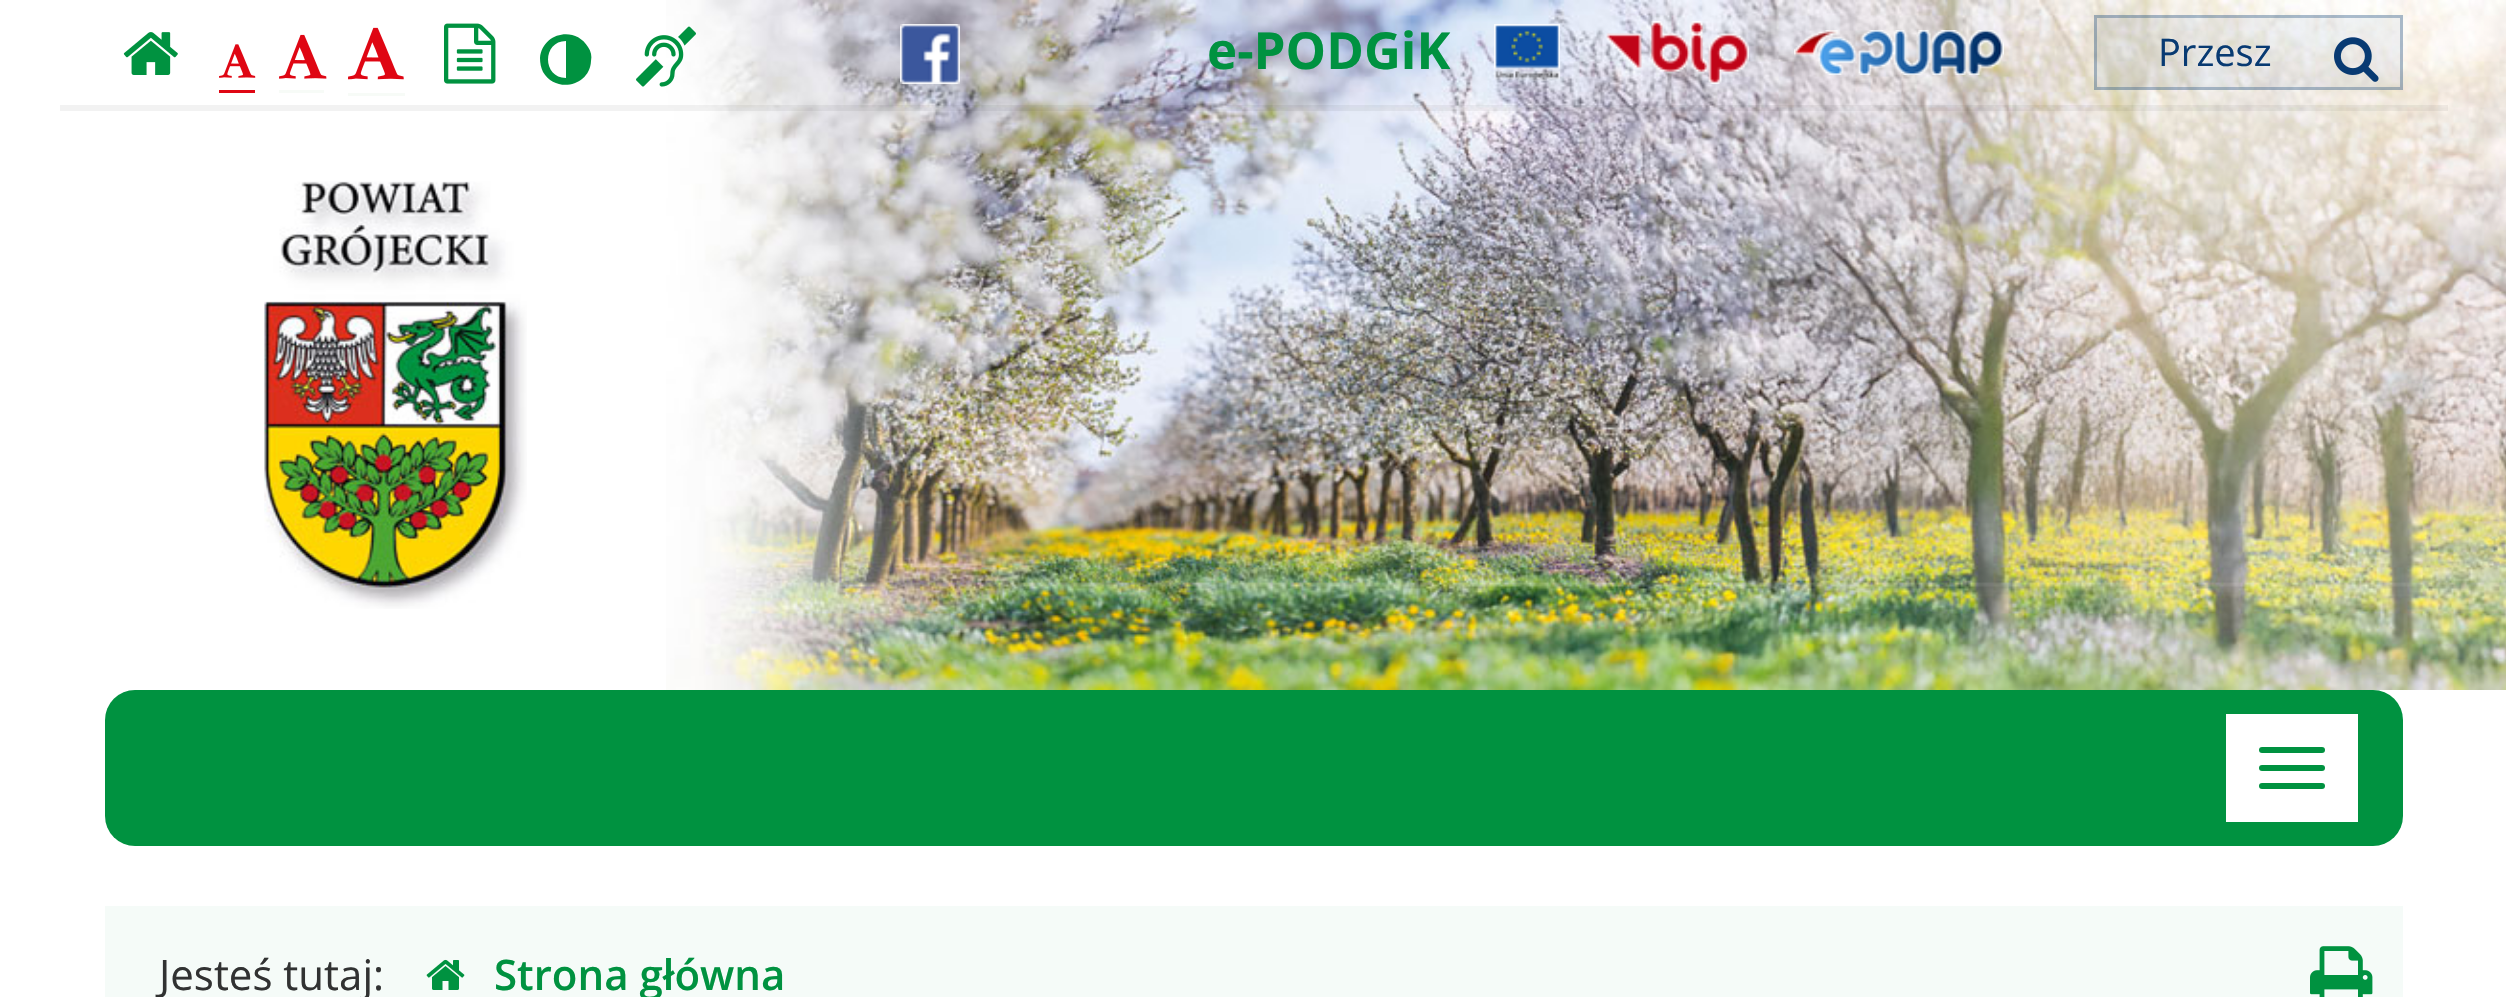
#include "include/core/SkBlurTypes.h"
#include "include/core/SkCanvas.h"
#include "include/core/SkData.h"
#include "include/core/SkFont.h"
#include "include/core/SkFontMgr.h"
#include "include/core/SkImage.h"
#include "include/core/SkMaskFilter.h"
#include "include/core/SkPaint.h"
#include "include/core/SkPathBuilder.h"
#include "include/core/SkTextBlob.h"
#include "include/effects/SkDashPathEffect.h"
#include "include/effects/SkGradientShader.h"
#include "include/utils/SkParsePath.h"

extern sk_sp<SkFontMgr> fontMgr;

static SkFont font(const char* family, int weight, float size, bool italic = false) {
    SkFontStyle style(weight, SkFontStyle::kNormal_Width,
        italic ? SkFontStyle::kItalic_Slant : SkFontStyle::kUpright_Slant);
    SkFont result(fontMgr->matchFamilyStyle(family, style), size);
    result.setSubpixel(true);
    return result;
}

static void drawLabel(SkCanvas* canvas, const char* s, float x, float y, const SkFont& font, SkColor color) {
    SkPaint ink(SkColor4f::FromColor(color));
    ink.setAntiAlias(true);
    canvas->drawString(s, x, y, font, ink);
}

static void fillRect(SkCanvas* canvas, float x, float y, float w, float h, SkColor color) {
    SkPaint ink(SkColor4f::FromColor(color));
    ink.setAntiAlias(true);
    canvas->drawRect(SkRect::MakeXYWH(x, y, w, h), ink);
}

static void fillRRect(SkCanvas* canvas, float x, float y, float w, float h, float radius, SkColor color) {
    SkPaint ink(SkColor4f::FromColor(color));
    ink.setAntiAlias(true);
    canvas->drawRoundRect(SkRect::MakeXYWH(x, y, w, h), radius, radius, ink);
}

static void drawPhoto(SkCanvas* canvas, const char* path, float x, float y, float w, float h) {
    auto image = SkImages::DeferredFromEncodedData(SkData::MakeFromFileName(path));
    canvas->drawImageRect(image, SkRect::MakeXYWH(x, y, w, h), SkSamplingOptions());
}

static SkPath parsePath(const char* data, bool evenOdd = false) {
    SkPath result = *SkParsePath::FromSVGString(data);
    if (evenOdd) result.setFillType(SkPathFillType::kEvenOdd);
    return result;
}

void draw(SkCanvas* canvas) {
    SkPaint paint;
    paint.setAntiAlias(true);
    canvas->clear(0xFFFFFFFF);
    drawPhoto(canvas, "assets/img1.png", 666, 0, 1840, 690);
    fillRect(canvas, 60, 105, 2388, 6, 0x0D000000);
    drawPhoto(canvas, "assets/img2.png", 123, 32, 55, 43);
    fillRect(canvas, 219, 90, 36, 3, 0xFFDF0613);
    drawPhoto(canvas, "assets/img3.png", 219, 44, 37, 34);
    fillRect(canvas, 279, 90, 45, 3, 0xFFF7FBF7);
    drawPhoto(canvas, "assets/img4.png", 279, 34, 48, 45);
    fillRect(canvas, 348, 93, 57, 3, 0xFFF7FBF7);
    drawPhoto(canvas, "assets/img5.png", 348, 27, 56, 53);
    drawPhoto(canvas, "assets/img6.png", 444, 23, 52, 61);
    paint.setColor(0xFF009240);
    canvas->drawPath(parsePath("M566 78V41C542 41 542 78 566 78ZM588 47C591 51 592 56 591 61C590 86 556 94 543 72C541 68 540 63 540 58C542 33 575 25 588 47Z"), paint);
    drawPhoto(canvas, "assets/img7.png", 636, 26, 60, 61);
    drawPhoto(canvas, "assets/img8.png", 900, 24, 60, 60);
    SkFont font1 = font("Open Sans", 700, 51);
    drawLabel(canvas, "e-PODGiK", 1207, 69, font1, 0xFF009240);
    drawPhoto(canvas, "assets/img9.png", 1494, 24, 66, 57);
    drawPhoto(canvas, "assets/img10.png", 1606, 21, 143, 63);
    drawPhoto(canvas, "assets/img11.png", 1794, 30, 210, 45);
    fillRect(canvas, 2094, 15, 309, 75, 0x0F083A72);
    paint.setStroke(true);
    paint.setStrokeWidth(3);
    paint.setColor(0x4D083A72);
    canvas->drawRect(SkRect::MakeXYWH(2095.5f, 16.5f, 306, 72), paint);
    SkFont font2 = font("Open Sans", 400, 38);
    drawLabel(canvas, "Przesz", 2158, 66, font2, 0xFF083A72);
    drawPhoto(canvas, "assets/img12.png", 2334, 37, 45, 45);
    drawPhoto(canvas, "assets/img13.png", 264, 181, 263, 428);
    fillRRect(canvas, 105, 690, 2298, 156, 30, 0xFF009240);
    fillRect(canvas, 2226, 714, 132, 108, 0xFFFFFFFF);
    fillRRect(canvas, 2259, 747, 66, 6, 3, 0xFF009240);
    fillRRect(canvas, 2259, 765, 66, 6, 3, 0xFF009240);
    fillRRect(canvas, 2259, 783, 66, 6, 3, 0xFF009240);
    fillRect(canvas, 105, 906, 2298, 91, 0xFFF5FBF8);
    SkFont font3 = font("Open Sans", 400, 42);
    drawLabel(canvas, "Jesteś tutaj:", 159, 990, font3, 0xFF313232);
    drawPhoto(canvas, "assets/img14.png", 426, 959, 39, 31);
    SkFont font4 = font("Open Sans", 600, 42);
    drawLabel(canvas, "Strona główna", 494, 990, font4, 0xFF009240);
    drawPhoto(canvas, "assets/img15.png", 2310, 946, 63, 51);
}
